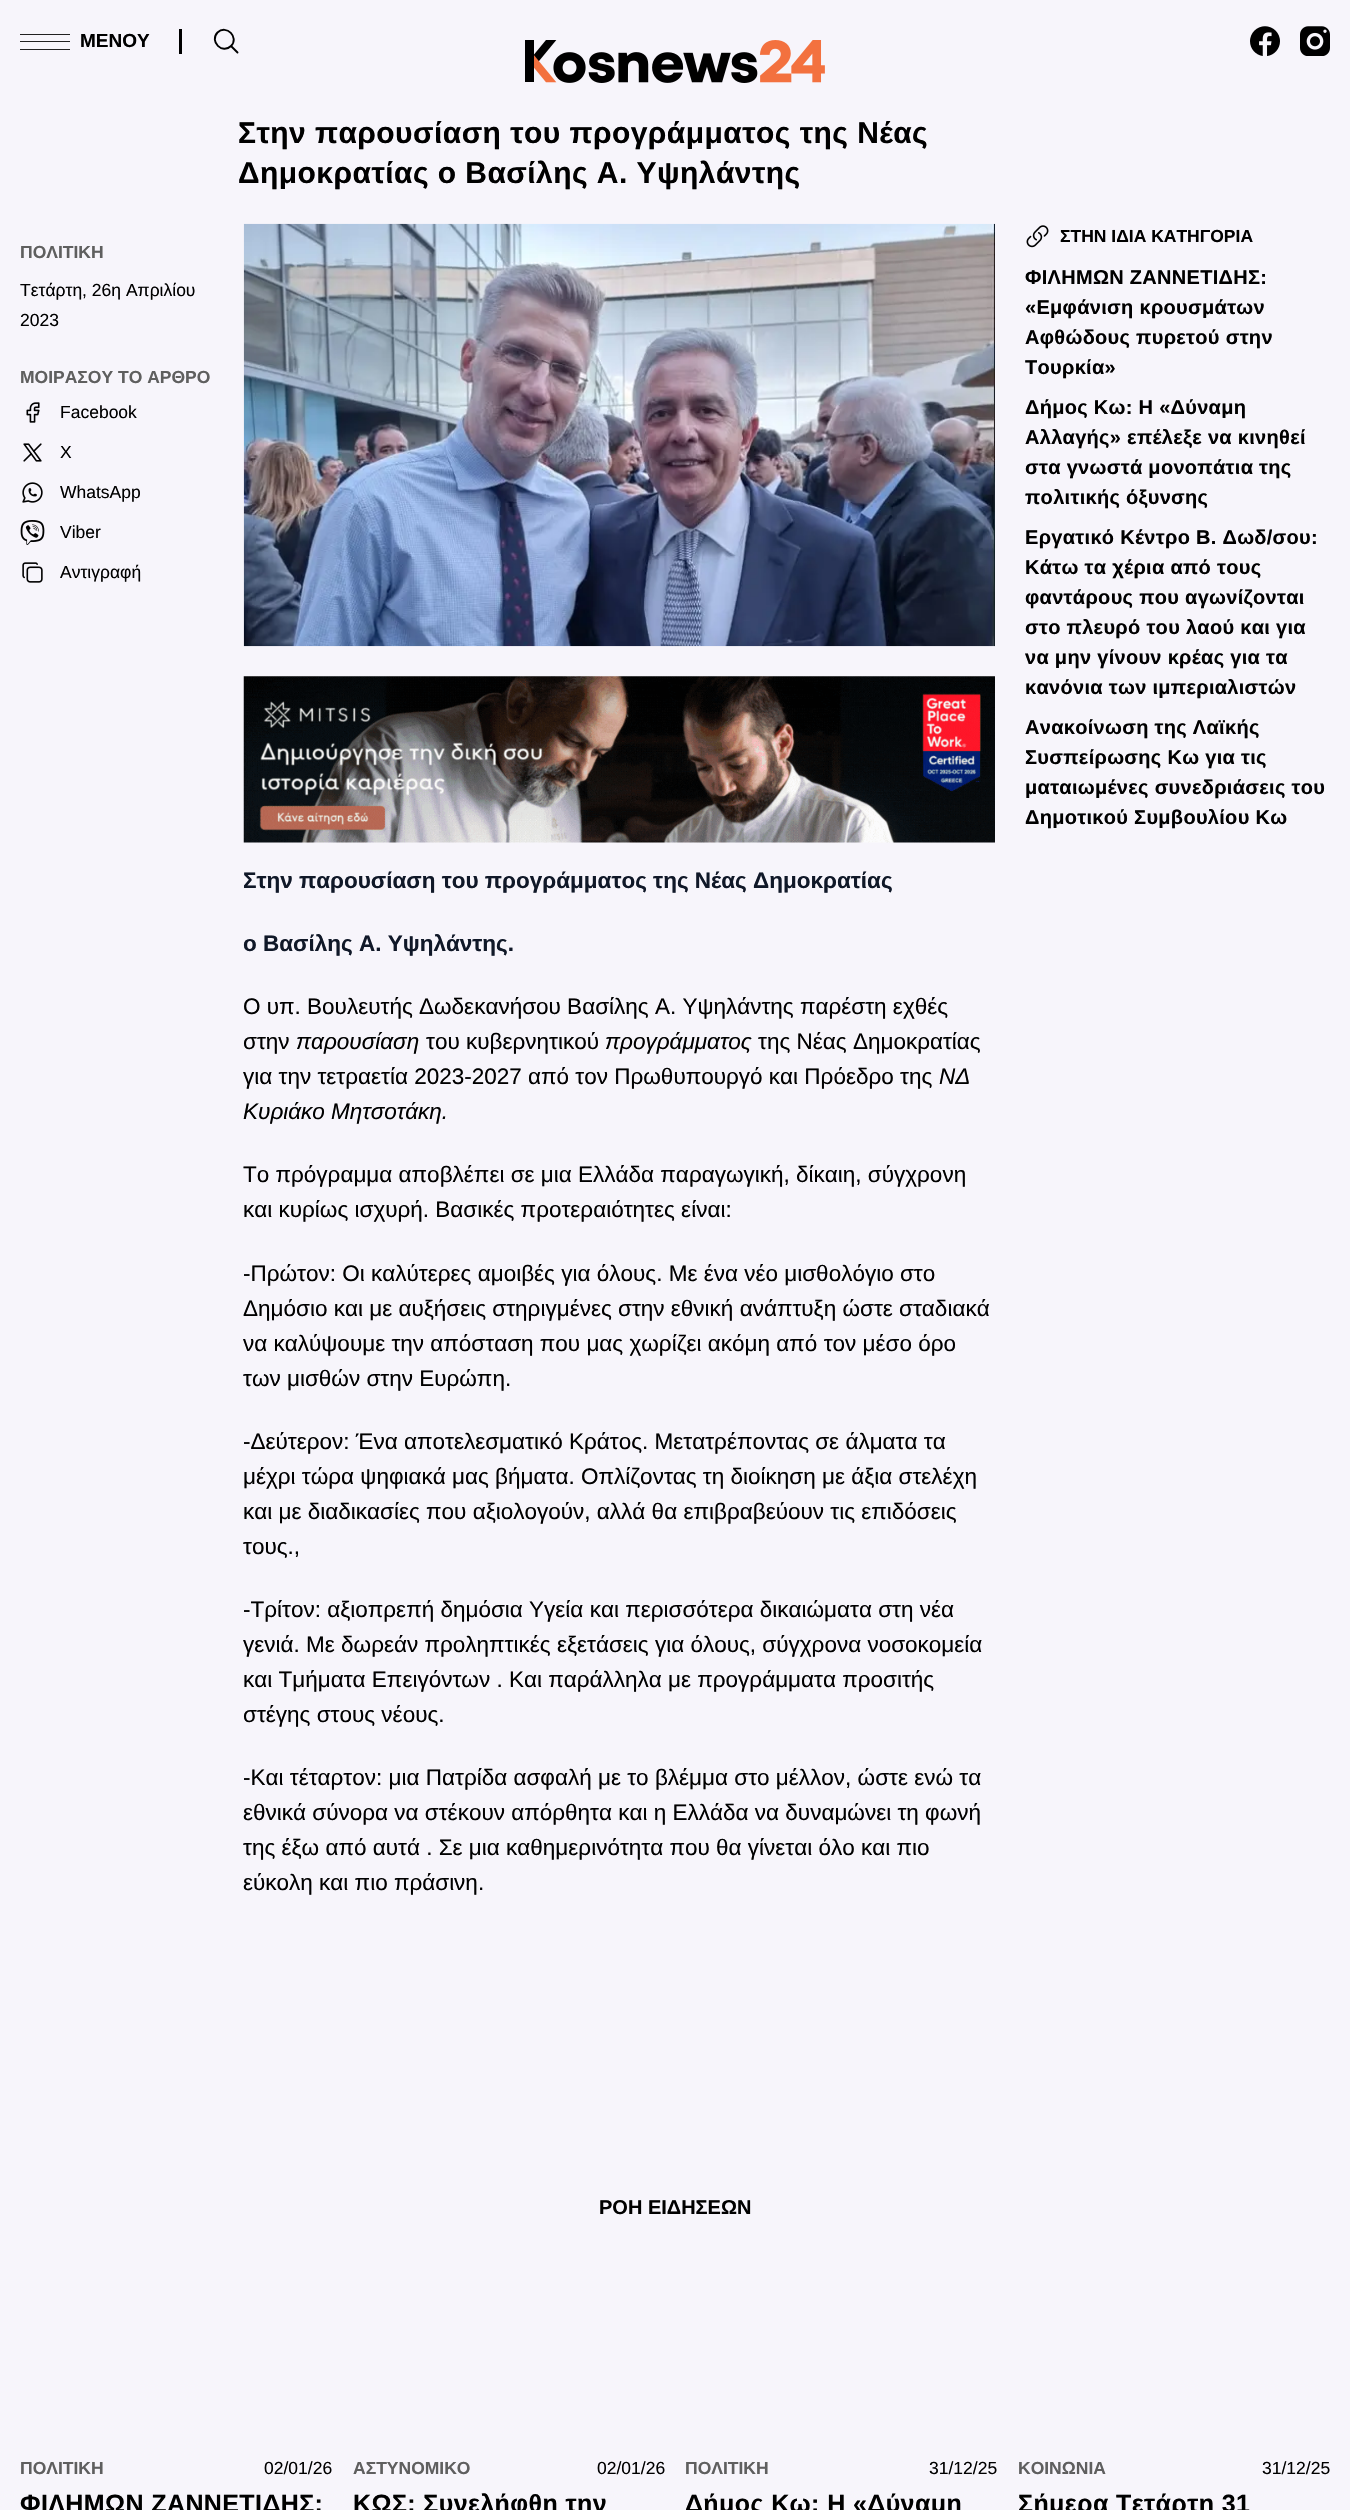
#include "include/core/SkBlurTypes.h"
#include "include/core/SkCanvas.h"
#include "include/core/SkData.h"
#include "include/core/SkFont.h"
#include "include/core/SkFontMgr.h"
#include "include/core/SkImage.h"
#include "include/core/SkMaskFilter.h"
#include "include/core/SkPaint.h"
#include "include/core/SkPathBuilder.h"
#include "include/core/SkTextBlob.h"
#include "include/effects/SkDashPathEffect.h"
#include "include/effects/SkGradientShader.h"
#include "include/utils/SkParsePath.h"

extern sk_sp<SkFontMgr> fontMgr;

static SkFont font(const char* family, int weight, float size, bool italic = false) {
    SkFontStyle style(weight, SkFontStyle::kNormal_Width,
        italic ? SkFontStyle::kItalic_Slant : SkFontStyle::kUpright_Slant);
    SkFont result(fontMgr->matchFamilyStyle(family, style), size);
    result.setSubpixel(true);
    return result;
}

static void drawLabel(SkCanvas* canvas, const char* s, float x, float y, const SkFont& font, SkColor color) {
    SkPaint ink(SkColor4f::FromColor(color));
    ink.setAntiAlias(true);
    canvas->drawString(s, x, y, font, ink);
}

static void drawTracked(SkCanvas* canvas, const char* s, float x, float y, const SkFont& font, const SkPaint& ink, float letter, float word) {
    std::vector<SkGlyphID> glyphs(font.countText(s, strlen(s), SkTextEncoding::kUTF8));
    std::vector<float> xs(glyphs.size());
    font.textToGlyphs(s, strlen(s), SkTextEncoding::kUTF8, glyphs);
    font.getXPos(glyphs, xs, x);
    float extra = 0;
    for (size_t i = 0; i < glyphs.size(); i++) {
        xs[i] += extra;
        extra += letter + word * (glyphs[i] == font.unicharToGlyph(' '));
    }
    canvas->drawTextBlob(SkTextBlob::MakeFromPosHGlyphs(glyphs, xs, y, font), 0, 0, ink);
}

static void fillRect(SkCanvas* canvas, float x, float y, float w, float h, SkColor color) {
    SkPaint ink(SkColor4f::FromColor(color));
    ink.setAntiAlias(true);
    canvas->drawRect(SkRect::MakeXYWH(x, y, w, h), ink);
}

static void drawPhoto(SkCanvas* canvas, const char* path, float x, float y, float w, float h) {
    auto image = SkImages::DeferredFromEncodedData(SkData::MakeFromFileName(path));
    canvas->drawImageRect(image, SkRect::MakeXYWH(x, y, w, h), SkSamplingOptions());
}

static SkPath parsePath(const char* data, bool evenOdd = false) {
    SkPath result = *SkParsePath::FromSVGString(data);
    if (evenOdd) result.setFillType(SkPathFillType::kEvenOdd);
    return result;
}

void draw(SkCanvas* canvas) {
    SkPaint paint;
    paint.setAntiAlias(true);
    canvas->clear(0xFFF7F5FB);
    fillRect(canvas, 20, 34, 50, 1, 0xFF212121);
    fillRect(canvas, 20, 41, 50, 1, 0xFF212121);
    fillRect(canvas, 20, 49, 50, 1, 0xFF212121);
    SkFont font1 = font("Liberation Sans", 700, 19);
    drawLabel(canvas, "MENOY", 80, 47, font1, 0xFF000000);
    fillRect(canvas, 179, 29, 3, 25, 0xFF000000);
    paint.setStroke(true);
    paint.setStrokeWidth(1.9f);
    paint.setStrokeCap(SkPaint::kRound_Cap);
    paint.setStrokeJoin(SkPaint::kRound_Join);
    paint.setColor(0xFF000000);
    canvas->drawPath(parsePath("M237.5 52.5L231 46M231 46C239.5 37.5 226.5 24 217.5 32.5C209 41.5 222.5 54.5 231 46Z"), paint);
    drawPhoto(canvas, "assets/img1.png", 525, 40, 300, 43);
    drawPhoto(canvas, "assets/img2.png", 1250, 26, 30, 30);
    drawPhoto(canvas, "assets/img3.png", 1300, 26, 30, 30);
    SkFont font2 = font("Liberation Sans", 700, 30);
    paint.setStroke(false);
    drawTracked(canvas, "Στην παρουσίαση του προγράμματος της Νέας", 238, 143, font2, paint, 0.45f, 0);
    drawTracked(canvas, "Δημοκρατίας ο Βασίλης Α. Υψηλάντης", 238, 183, font2, paint, 0.45f, 0);
    SkFont font3 = font("Liberation Sans", 700, 17.5f);
    drawLabel(canvas, "ΠΟΛΙΤΙΚΗ", 20, 258, font3, 0xFF5F5F5F);
    SkFont font4 = font("Liberation Sans", 400, 17.5f);
    drawLabel(canvas, "Τετάρτη, 26η Απριλίου", 20, 296, font4, 0xFF000000);
    drawLabel(canvas, "2023", 20, 326, font4, 0xFF000000);
    drawLabel(canvas, "ΜΟΙΡΑΣΟΥ ΤΟ ΑΡΘΡΟ", 20, 383, font3, 0xFF5F5F5F);
    drawPhoto(canvas, "assets/img4.png", 26, 402, 14, 21);
    drawLabel(canvas, "Facebook", 60, 418, font4, 0xFF000000);
    drawPhoto(canvas, "assets/img5.png", 23, 443, 19, 19);
    drawLabel(canvas, "X", 60, 458, font4, 0xFF000000);
    drawPhoto(canvas, "assets/img6.png", 22, 482, 21, 21);
    drawLabel(canvas, "WhatsApp", 60, 498, font4, 0xFF000000);
    drawPhoto(canvas, "assets/img7.png", 20, 520, 25, 25);
    drawLabel(canvas, "Viber", 60, 538, font4, 0xFF000000);
    drawPhoto(canvas, "assets/img8.png", 22, 562, 21, 21);
    drawLabel(canvas, "Αντιγραφή", 60, 578, font4, 0xFF000000);
    drawPhoto(canvas, "assets/img9.png", 1026, 225, 23, 23);
    drawLabel(canvas, "ΣΤΗΝ ΙΔΙΑ ΚΑΤΗΓΟΡΙΑ", 1060, 242, font3, 0xFF000000);
    SkFont font5 = font("Liberation Sans", 700, 20);
    drawTracked(canvas, "ΦΙΛΗΜΩΝ ΖΑΝΝΕΤΙΔΗΣ:", 1025, 284, font5, paint, 0.3f, 0);
    drawTracked(canvas, "«Εμφάνιση κρουσμάτων", 1025, 314, font5, paint, 0.3f, 0);
    drawTracked(canvas, "Αφθώδους πυρετού στην", 1025, 344, font5, paint, 0.3f, 0);
    drawTracked(canvas, "Τουρκία»", 1025, 374, font5, paint, 0.3f, 0);
    drawTracked(canvas, "Δήμος Κω: Η «Δύναμη", 1025, 414, font5, paint, 0.3f, 0);
    drawTracked(canvas, "Αλλαγής» επέλεξε να κινηθεί", 1025, 444, font5, paint, 0.3f, 0);
    drawTracked(canvas, "στα γνωστά μονοπάτια της", 1025, 474, font5, paint, 0.3f, 0);
    drawTracked(canvas, "πολιτικής όξυνσης", 1025, 504, font5, paint, 0.3f, 0);
    drawTracked(canvas, "Εργατικό Κέντρο Β. Δωδ/σου:", 1025, 544, font5, paint, 0.3f, 0);
    drawTracked(canvas, "Κάτω τα χέρια από τους", 1025, 574, font5, paint, 0.3f, 0);
    drawTracked(canvas, "φαντάρους που αγωνίζονται", 1025, 604, font5, paint, 0.3f, 0);
    drawTracked(canvas, "στο πλευρό του λαού και για", 1025, 634, font5, paint, 0.3f, 0);
    drawTracked(canvas, "να μην γίνουν κρέας για τα", 1025, 664, font5, paint, 0.3f, 0);
    drawTracked(canvas, "κανόνια των ιμπεριαλιστών", 1025, 694, font5, paint, 0.3f, 0);
    drawTracked(canvas, "Ανακοίνωση της Λαϊκής", 1025, 734, font5, paint, 0.3f, 0);
    drawTracked(canvas, "Συσπείρωσης Κω για τις", 1025, 764, font5, paint, 0.3f, 0);
    drawTracked(canvas, "ματαιωμένες συνεδριάσεις του", 1025, 794, font5, paint, 0.3f, 0);
    drawTracked(canvas, "Δημοτικού Συμβουλίου Κω", 1025, 824, font5, paint, 0.3f, 0);
    drawPhoto(canvas, "assets/img10.png", 243, 223, 752, 424);
    drawPhoto(canvas, "assets/img11.png", 243, 676, 752, 167);
    SkFont font6 = font("Liberation Sans", 700, 22.5f);
    drawLabel(canvas, "Στην παρουσίαση του προγράμματος της Νέας Δημοκρατίας", 243, 888, font6, 0xFF101828);
    drawLabel(canvas, "ο Βασίλης Α. Υψηλάντης.", 243, 951, font6, 0xFF101828);
    SkFont font7 = font("Liberation Sans", 400, 22.5f);
    drawLabel(canvas, "Ο υπ. Βουλευτής Δωδεκανήσου Βασίλης Α. Υψηλάντης παρέστη εχθές", 243, 1014, font7, 0xFF000000);
    drawLabel(canvas, "στην", 243, 1049, font7, 0xFF000000);
    SkFont font8 = font("Liberation Sans", 400, 22.5f, true);
    drawLabel(canvas, "παρουσίαση", 296, 1049, font8, 0xFF000000);
    drawLabel(canvas, "του κυβερνητικού", 426, 1049, font7, 0xFF000000);
    drawLabel(canvas, "προγράμματος", 605, 1049, font8, 0xFF000000);
    drawLabel(canvas, "της Νέας Δημοκρατίας", 758, 1049, font7, 0xFF000000);
    drawLabel(canvas, "για την τετραετία 2023-2027 από τον Πρωθυπουργό και Πρόεδρο της", 243, 1084, font7, 0xFF000000);
    drawLabel(canvas, "ΝΔ", 939, 1084, font8, 0xFF000000);
    drawLabel(canvas, "Κυριάκο Μητσοτάκη.", 243, 1119, font8, 0xFF000000);
    drawLabel(canvas, "Το πρόγραμμα αποβλέπει σε μια Ελλάδα παραγωγική, δίκαιη, σύγχρονη", 243, 1182, font7, 0xFF000000);
    drawLabel(canvas, "και κυρίως ισχυρή. Βασικές προτεραιότητες είναι:", 243, 1217, font7, 0xFF000000);
    drawLabel(canvas, "-Πρώτον: Οι καλύτερες αμοιβές για όλους. Με ένα νέο μισθολόγιο στο", 243, 1281, font7, 0xFF000000);
    drawLabel(canvas, "Δημόσιο και με αυξήσεις στηριγμένες στην εθνική ανάπτυξη ώστε σταδιακά", 243, 1316, font7, 0xFF000000);
    drawLabel(canvas, "να καλύψουμε την απόσταση που μας χωρίζει ακόμη από τον μέσο όρο", 243, 1351, font7, 0xFF000000);
    drawLabel(canvas, "των μισθών στην Ευρώπη.", 243, 1386, font7, 0xFF000000);
    drawLabel(canvas, "-Δεύτερον: Ένα αποτελεσματικό Κράτος. Μετατρέποντας σε άλματα τα", 243, 1449, font7, 0xFF000000);
    drawLabel(canvas, "μέχρι τώρα ψηφιακά μας βήματα. Οπλίζοντας τη διοίκηση με άξια στελέχη", 243, 1484, font7, 0xFF000000);
    drawLabel(canvas, "και με διαδικασίες που αξιολογούν, αλλά θα επιβραβεύουν τις επιδόσεις", 243, 1519, font7, 0xFF000000);
    drawLabel(canvas, "τους.,", 243, 1554, font7, 0xFF000000);
    drawLabel(canvas, "-Τρίτον: αξιοπρεπή δημόσια Υγεία και περισσότερα δικαιώματα στη νέα", 243, 1617, font7, 0xFF000000);
    drawLabel(canvas, "γενιά. Με δωρεάν προληπτικές εξετάσεις για όλους, σύγχρονα νοσοκομεία", 243, 1652, font7, 0xFF000000);
    drawLabel(canvas, "και Τμήματα Επειγόντων . Και παράλληλα με προγράμματα προσιτής", 243, 1687, font7, 0xFF000000);
    drawLabel(canvas, "στέγης στους νέους.", 243, 1722, font7, 0xFF000000);
    drawLabel(canvas, "-Και τέταρτον: μια Πατρίδα ασφαλή με το βλέμμα στο μέλλον, ώστε ενώ τα", 243, 1785, font7, 0xFF000000);
    drawLabel(canvas, "εθνικά σύνορα να στέκουν απόρθητα και η Ελλάδα να δυναμώνει τη φωνή", 243, 1820, font7, 0xFF000000);
    drawLabel(canvas, "της έξω από αυτά . Σε μια καθημερινότητα που θα γίνεται όλο και πιο", 243, 1855, font7, 0xFF000000);
    drawLabel(canvas, "εύκολη και πιο πράσινη.", 243, 1890, font7, 0xFF000000);
    drawLabel(canvas, "ΡΟΗ ΕΙΔΗΣΕΩΝ", 599, 2214, font5, 0xFF000000);
    drawLabel(canvas, "ΠΟΛΙΤΙΚΗ", 20, 2474, font3, 0xFF5F5F5F);
    drawLabel(canvas, "02/01/26", 264, 2474, font4, 0xFF000000);
    SkFont font9 = font("Liberation Sans", 700, 25);
    drawTracked(canvas, "ΦΙΛΗΜΩΝ ΖΑΝΝΕΤΙΔΗΣ:", 20, 2512, font9, paint, 0.4f, 0);
    drawLabel(canvas, "ΑΣΤΥΝΟΜΙΚΟ", 353, 2474, font3, 0xFF5F5F5F);
    drawLabel(canvas, "02/01/26", 597, 2474, font4, 0xFF000000);
    drawTracked(canvas, "ΚΩΣ: Συνελήφθη την", 353, 2512, font9, paint, 0.4f, 0);
    drawLabel(canvas, "ΠΟΛΙΤΙΚΗ", 685, 2474, font3, 0xFF5F5F5F);
    drawLabel(canvas, "31/12/25", 929, 2474, font4, 0xFF000000);
    drawTracked(canvas, "Δήμος Κω: Η «Δύναμη", 685, 2512, font9, paint, 0.4f, 0);
    drawLabel(canvas, "ΚΟΙΝΩΝΙΑ", 1018, 2474, font3, 0xFF5F5F5F);
    drawLabel(canvas, "31/12/25", 1262, 2474, font4, 0xFF000000);
    drawTracked(canvas, "Σήμερα Τετάρτη 31", 1018, 2512, font9, paint, 0.4f, 0);
}
